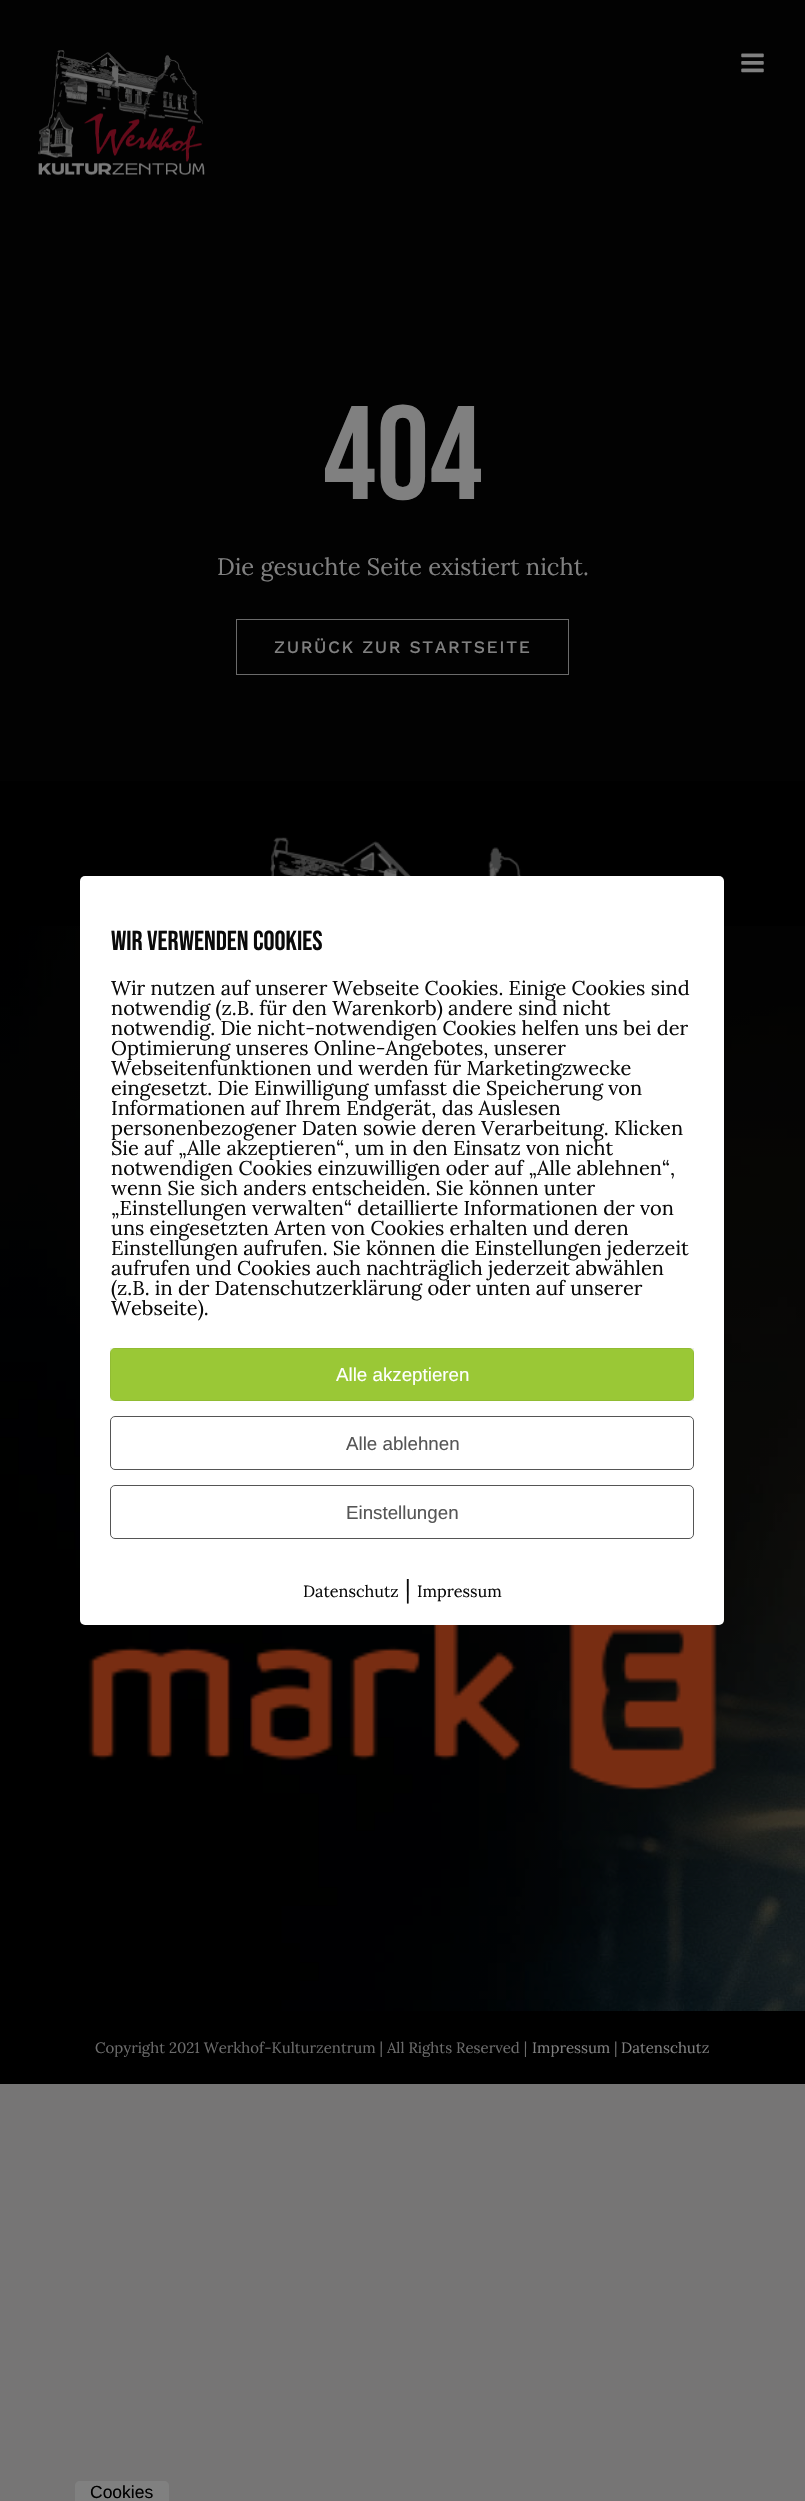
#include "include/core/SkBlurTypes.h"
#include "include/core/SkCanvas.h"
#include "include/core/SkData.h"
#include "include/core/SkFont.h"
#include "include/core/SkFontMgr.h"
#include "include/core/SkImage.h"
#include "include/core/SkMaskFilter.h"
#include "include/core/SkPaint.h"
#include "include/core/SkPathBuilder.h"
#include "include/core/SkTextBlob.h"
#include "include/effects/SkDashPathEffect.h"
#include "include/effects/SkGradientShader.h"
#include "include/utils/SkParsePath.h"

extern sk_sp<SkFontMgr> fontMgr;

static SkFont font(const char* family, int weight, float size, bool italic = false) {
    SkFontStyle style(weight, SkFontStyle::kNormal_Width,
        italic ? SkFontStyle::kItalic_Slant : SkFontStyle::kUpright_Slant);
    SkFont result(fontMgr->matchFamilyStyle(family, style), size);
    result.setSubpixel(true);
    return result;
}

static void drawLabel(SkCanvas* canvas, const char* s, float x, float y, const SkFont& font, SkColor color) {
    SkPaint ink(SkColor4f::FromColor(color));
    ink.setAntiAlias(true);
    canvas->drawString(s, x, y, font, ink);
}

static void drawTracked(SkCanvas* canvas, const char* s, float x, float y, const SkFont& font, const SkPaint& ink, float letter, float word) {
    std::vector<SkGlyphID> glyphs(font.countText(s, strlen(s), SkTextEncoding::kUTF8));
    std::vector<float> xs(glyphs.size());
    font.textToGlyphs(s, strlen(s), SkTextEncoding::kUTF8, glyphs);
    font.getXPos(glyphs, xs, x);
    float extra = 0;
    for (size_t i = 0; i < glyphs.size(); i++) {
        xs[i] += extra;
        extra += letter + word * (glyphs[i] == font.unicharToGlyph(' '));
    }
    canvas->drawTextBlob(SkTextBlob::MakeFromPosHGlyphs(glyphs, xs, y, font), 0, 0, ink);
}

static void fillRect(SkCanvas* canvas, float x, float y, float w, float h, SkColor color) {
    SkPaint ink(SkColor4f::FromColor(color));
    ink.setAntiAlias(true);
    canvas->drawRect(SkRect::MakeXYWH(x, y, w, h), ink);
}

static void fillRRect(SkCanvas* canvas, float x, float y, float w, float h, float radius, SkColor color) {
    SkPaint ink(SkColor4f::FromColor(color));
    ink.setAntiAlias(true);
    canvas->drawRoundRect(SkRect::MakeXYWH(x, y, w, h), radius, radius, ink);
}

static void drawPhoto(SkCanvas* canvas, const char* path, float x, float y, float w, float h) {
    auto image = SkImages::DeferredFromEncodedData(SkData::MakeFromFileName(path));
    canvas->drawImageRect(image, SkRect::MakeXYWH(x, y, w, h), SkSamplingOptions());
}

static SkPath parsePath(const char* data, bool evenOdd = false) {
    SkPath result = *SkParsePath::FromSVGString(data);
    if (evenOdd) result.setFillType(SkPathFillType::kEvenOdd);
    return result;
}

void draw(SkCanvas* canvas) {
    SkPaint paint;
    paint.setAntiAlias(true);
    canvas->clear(0xFF767575);
    fillRect(canvas, 0, 0, 805, 781, 0xFF020202);
    drawPhoto(canvas, "assets/img1.png", 38, 50, 167, 126);
    drawPhoto(canvas, "assets/img2.png", 741, 53, 23, 20);
    SkFont font1 = font("Bebas Neue", 400, 133);
    drawLabel(canvas, "404", 323, 499, font1, 0xFF808080);
    SkFont font2 = font("Lora", 400, 23.75f);
    drawLabel(canvas, "Die gesuchte Seite existiert nicht.", 217, 575, font2, 0xFF808080);
    paint.setStroke(true);
    paint.setStrokeWidth(1);
    paint.setColor(0xFF6B6B6B);
    canvas->drawRect(SkRect::MakeXYWH(236.5f, 619.5f, 332, 55), paint);
    SkFont font3 = font("Work Sans", 500, 17.5f);
    paint.setStroke(false);
    paint.setColor(0xFF808080);
    drawTracked(canvas, "ZURÜCK ZUR STARTSEITE", 274, 653, font3, paint, 1.6f, 0);
    fillRect(canvas, 0, 781, 805, 145, 0xFF000000);
    drawPhoto(canvas, "assets/img3.png", 0, 926, 805, 1085);
    drawPhoto(canvas, "assets/img4.png", 270, 837, 252, 39);
    drawPhoto(canvas, "assets/img5.png", 88, 1625, 629, 167);
    fillRect(canvas, 0, 2011, 805, 73, 0xFF000000);
    SkFont font4 = font("Lora", 400, 15);
    drawLabel(canvas, "Copyright 2021 Werkhof-Kulturzentrum | All Rights Reserved |", 95, 2053, font4, 0xFF6B6B6B);
    drawLabel(canvas, "Impressum", 532, 2053, font4, 0xFF808080);
    drawLabel(canvas, "|", 614, 2053, font4, 0xFF6B6B6B);
    drawLabel(canvas, "Datenschutz", 621, 2053, font4, 0xFF808080);
    fillRRect(canvas, 80, 876, 644, 749, 5, 0xFFFFFFFF);
    SkFont font5 = font("Bebas Neue", 400, 27.5f);
    drawLabel(canvas, "Wir verwenden Cookies", 111, 950, font5, 0xFF0A0A0A);
    SkFont font6 = font("Lora", 400, 20);
    drawLabel(canvas, "Wir nutzen auf unserer Webseite Cookies. Einige Cookies sind", 111, 995, font6, 0xFF0A0A0A);
    drawLabel(canvas, "notwendig (z.B. für den Warenkorb) andere sind nicht", 111, 1015, font6, 0xFF0A0A0A);
    drawLabel(canvas, "notwendig. Die nicht-notwendigen Cookies helfen uns bei der", 111, 1035, font6, 0xFF0A0A0A);
    drawLabel(canvas, "Optimierung unseres Online-Angebotes, unserer", 111, 1055, font6, 0xFF0A0A0A);
    drawLabel(canvas, "Webseitenfunktionen und werden für Marketingzwecke", 111, 1075, font6, 0xFF0A0A0A);
    drawLabel(canvas, "eingesetzt. Die Einwilligung umfasst die Speicherung von", 111, 1095, font6, 0xFF0A0A0A);
    drawLabel(canvas, "Informationen auf Ihrem Endgerät, das Auslesen", 111, 1115, font6, 0xFF0A0A0A);
    drawLabel(canvas, "personenbezogener Daten sowie deren Verarbeitung. Klicken", 111, 1135, font6, 0xFF0A0A0A);
    drawLabel(canvas, "Sie auf „Alle akzeptieren“, um in den Einsatz von nicht", 111, 1155, font6, 0xFF0A0A0A);
    drawLabel(canvas, "notwendigen Cookies einzuwilligen oder auf „Alle ablehnen“,", 111, 1175, font6, 0xFF0A0A0A);
    drawLabel(canvas, "wenn Sie sich anders entscheiden. Sie können unter", 111, 1195, font6, 0xFF0A0A0A);
    drawLabel(canvas, "„Einstellungen verwalten“ detaillierte Informationen der von", 111, 1215, font6, 0xFF0A0A0A);
    drawLabel(canvas, "uns eingesetzten Arten von Cookies erhalten und deren", 111, 1235, font6, 0xFF0A0A0A);
    drawLabel(canvas, "Einstellungen aufrufen. Sie können die Einstellungen jederzeit", 111, 1255, font6, 0xFF0A0A0A);
    drawLabel(canvas, "aufrufen und Cookies auch nachträglich jederzeit abwählen", 111, 1275, font6, 0xFF0A0A0A);
    drawLabel(canvas, "(z.B. in der Datenschutzerklärung oder unten auf unserer", 111, 1295, font6, 0xFF0A0A0A);
    drawLabel(canvas, "Webseite).", 111, 1315, font6, 0xFF0A0A0A);
    fillRRect(canvas, 110, 1348, 584, 53, 5, 0xFF9AC836);
    paint.setStroke(true);
    paint.setColor(0x0F000000);
    canvas->drawRect(SkRect::MakeXYWH(110.5f, 1348.5f, 583, 52), paint);
    SkFont font7 = font("Liberation Sans", 400, 18.75f);
    drawLabel(canvas, "Alle akzeptieren", 336, 1381, font7, 0xFFFFFFFF);
    paint.setColor(0xFF555555);
    canvas->drawRoundRect(SkRect::MakeXYWH(110.5f, 1416.5f, 583, 53), 4.5f, 4.5f, paint);
    drawLabel(canvas, "Alle ablehnen", 346, 1450, font7, 0xFF555555);
    canvas->drawRoundRect(SkRect::MakeXYWH(110.5f, 1485.5f, 583, 53), 4.5f, 4.5f, paint);
    drawLabel(canvas, "Einstellungen", 346, 1519, font7, 0xFF555555);
    SkFont font8 = font("Lora", 400, 16.25f);
    drawLabel(canvas, "Datenschutz", 303, 1597, font8, 0xFF0A0A0A);
    drawLabel(canvas, "|", 405, 1597, font2, 0xFF0A0A0A);
    drawLabel(canvas, "Impressum", 417, 1597, font8, 0xFF0A0A0A);
    paint.setStroke(false);
    paint.setColor(0xFF808080);
    canvas->drawPath(parsePath("M80 2481H164C167 2481 169 2483 169 2486V2501H75V2486C75 2483 77 2481 80 2481Z"), paint);
    SkFont font9 = font("Liberation Sans", 400, 17.5f);
    drawLabel(canvas, "Cookies", 90, 2498, font9, 0xFF000000);
}
